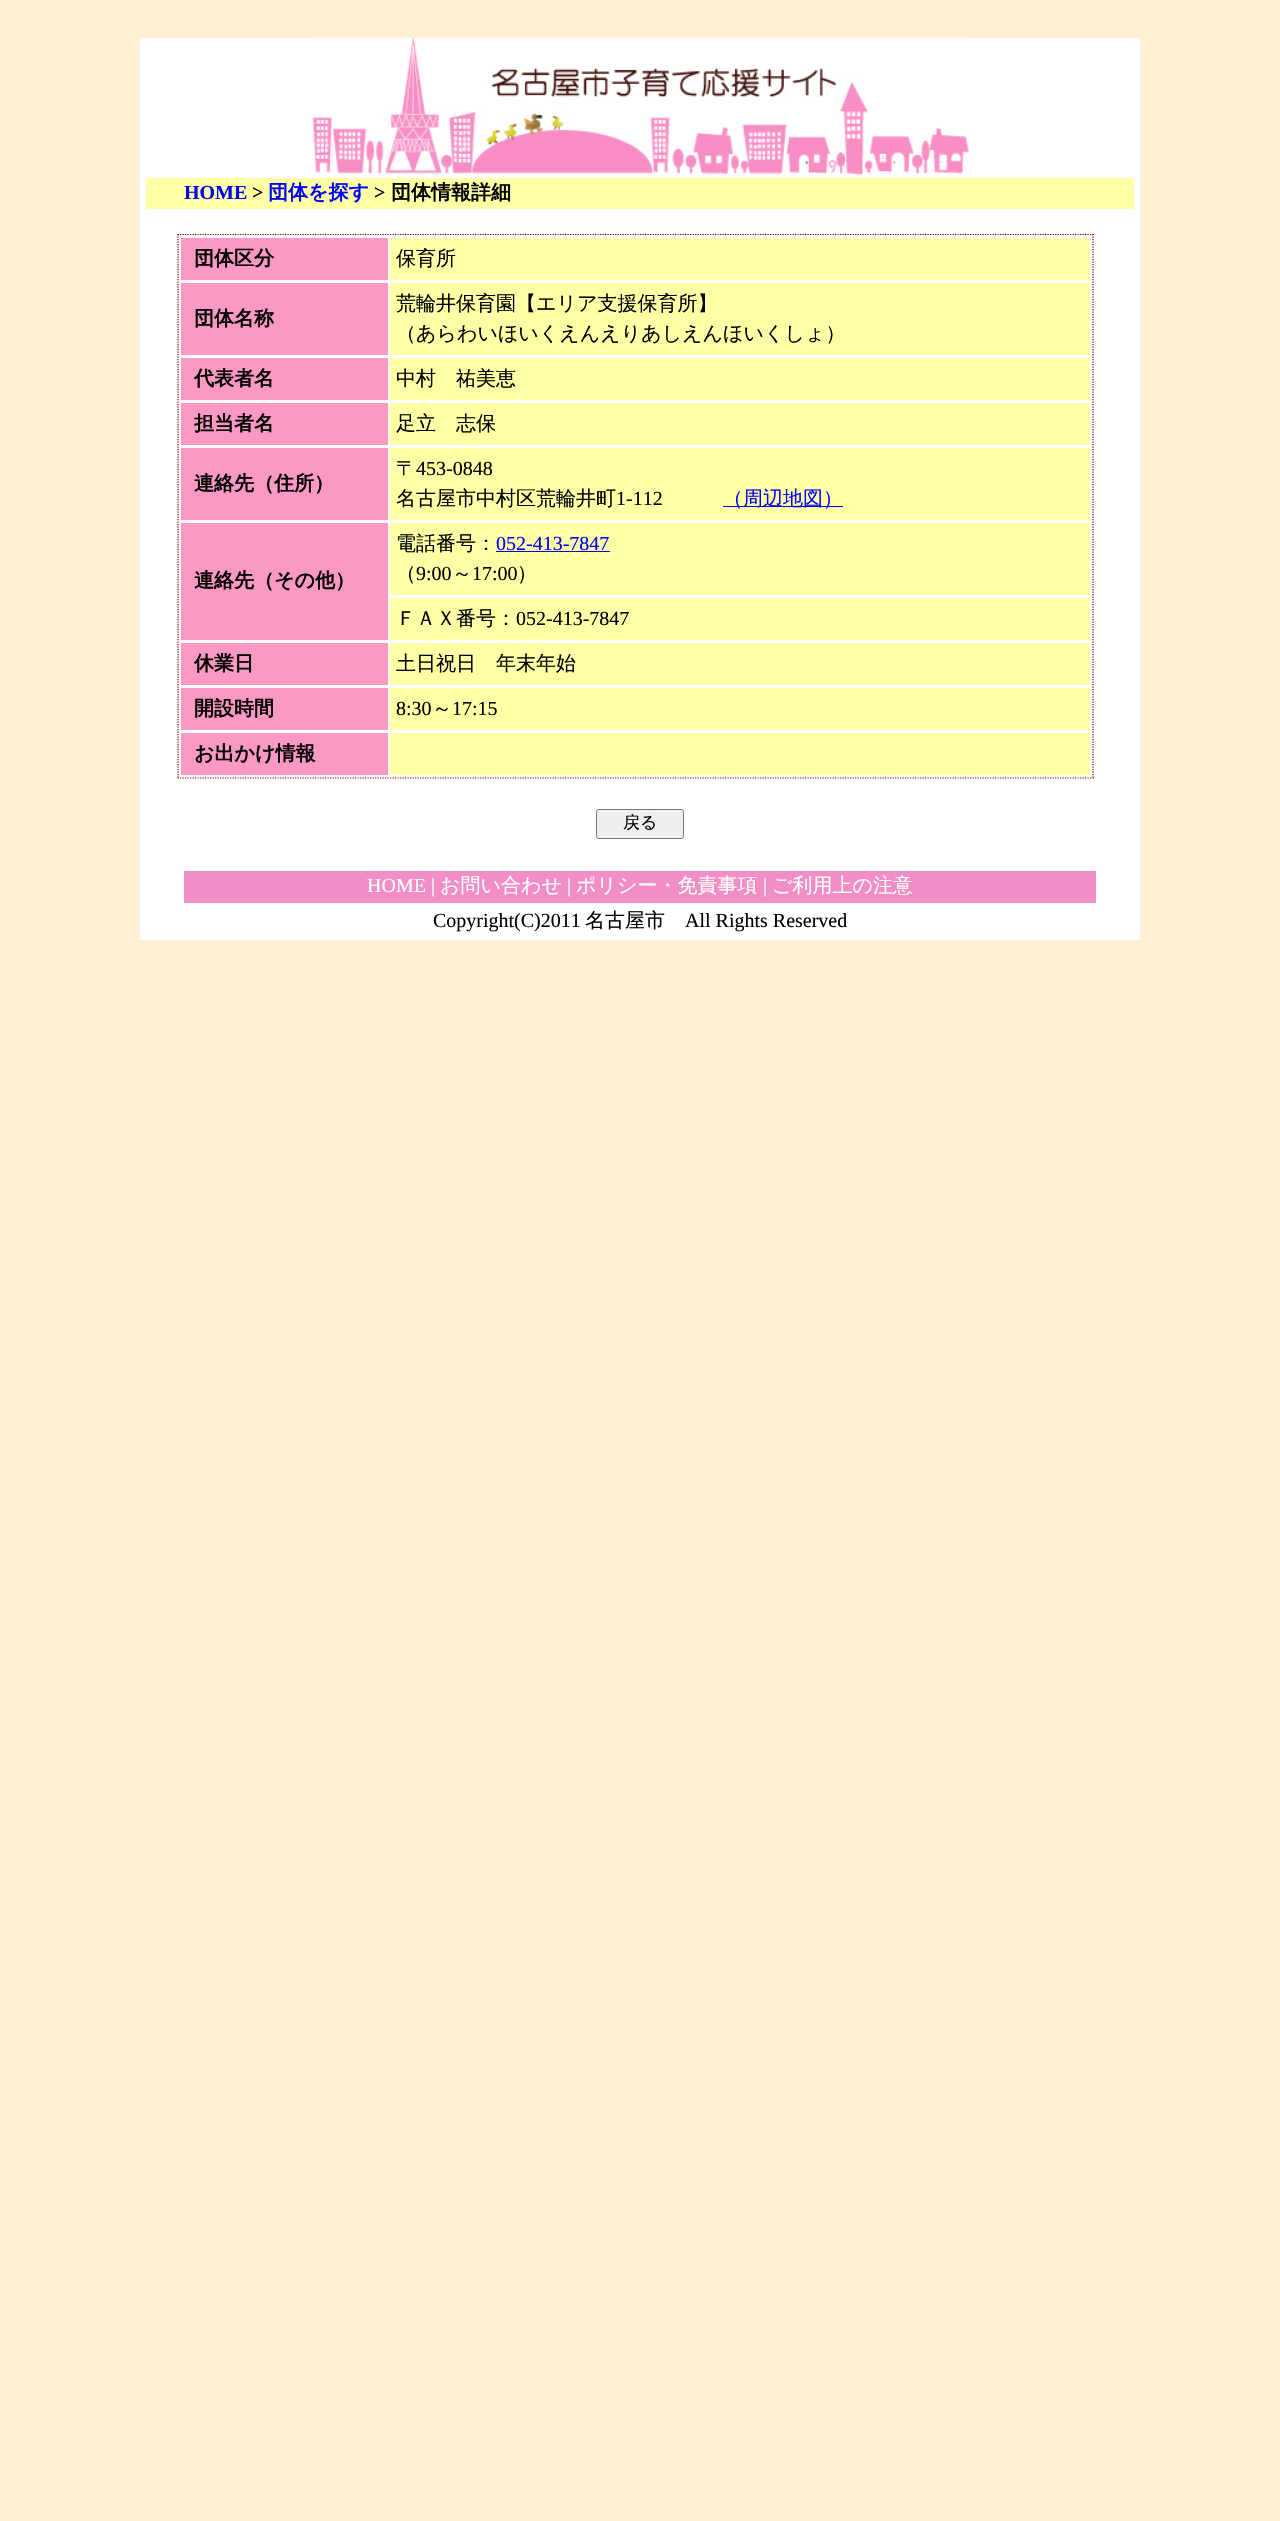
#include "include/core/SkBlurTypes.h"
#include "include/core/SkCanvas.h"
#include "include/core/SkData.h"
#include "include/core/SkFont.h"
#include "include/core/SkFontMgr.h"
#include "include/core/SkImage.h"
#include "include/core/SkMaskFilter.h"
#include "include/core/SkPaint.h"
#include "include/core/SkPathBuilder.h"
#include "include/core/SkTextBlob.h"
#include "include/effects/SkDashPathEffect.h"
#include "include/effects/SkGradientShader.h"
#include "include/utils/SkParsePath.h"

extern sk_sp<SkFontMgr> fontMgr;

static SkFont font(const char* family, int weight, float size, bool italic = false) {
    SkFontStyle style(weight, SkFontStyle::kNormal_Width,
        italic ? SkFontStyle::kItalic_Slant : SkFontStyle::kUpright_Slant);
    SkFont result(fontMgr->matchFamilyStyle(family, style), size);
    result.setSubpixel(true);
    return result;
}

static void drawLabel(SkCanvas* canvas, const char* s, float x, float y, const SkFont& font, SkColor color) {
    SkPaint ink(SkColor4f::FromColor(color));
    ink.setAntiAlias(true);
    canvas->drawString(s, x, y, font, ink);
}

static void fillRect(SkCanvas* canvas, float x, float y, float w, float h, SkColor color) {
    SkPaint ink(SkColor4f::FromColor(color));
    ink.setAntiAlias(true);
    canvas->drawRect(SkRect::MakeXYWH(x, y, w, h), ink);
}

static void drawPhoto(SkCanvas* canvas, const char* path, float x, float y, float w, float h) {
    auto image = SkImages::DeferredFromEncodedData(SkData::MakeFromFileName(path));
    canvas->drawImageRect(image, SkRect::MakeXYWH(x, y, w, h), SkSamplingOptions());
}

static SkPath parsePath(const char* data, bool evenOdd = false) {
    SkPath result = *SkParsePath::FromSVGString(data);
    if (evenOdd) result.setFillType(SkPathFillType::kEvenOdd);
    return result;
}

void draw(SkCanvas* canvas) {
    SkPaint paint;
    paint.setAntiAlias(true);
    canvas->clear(0xFFFFEFD5);
    fillRect(canvas, 140, 38, 1000, 902, 0xFFFFFFFF);
    drawPhoto(canvas, "assets/img1.png", 312, 37, 657, 139);
    fillRect(canvas, 146, 178, 988, 31, 0xFFFFFFA6);
    SkFont font1 = font("Liberation Serif", 700, 20);
    drawLabel(canvas, "HOME", 184, 199, font1, 0xFF0000FF);
    drawLabel(canvas, ">", 252, 199, font1, 0xFF000000);
    SkFont font2 = font("WenQuanYi Zen Hei", 700, 20);
    drawLabel(canvas, "団体を探す", 268, 199, font2, 0xFF0000FF);
    drawLabel(canvas, ">", 374, 199, font1, 0xFF000000);
    drawLabel(canvas, "団体情報詳細", 391, 199, font2, 0xFF000000);
    paint.setStroke(true);
    paint.setStrokeWidth(1.2f);
    paint.setColor(0xFF800000);
    paint.setPathEffect(SkDashPathEffect::Make({{1.25f, 1.25f}}, 0));
    canvas->drawPath(parsePath("M177.5 234.5H1094"), paint);
    paint.setPathEffect(nullptr);
    paint.setPathEffect(SkDashPathEffect::Make({{1.25f, 1.25f}}, 0));
    canvas->drawPath(parsePath("M1093 234V779"), paint);
    paint.setPathEffect(nullptr);
    paint.setPathEffect(SkDashPathEffect::Make({{1.25f, 1.25f}}, 0));
    canvas->drawPath(parsePath("M177.5 778H1094"), paint);
    paint.setPathEffect(nullptr);
    paint.setPathEffect(SkDashPathEffect::Make({{1.25f, 1.25f}}, 0));
    canvas->drawPath(parsePath("M178 234V779"), paint);
    paint.setPathEffect(nullptr);
    fillRect(canvas, 181, 238, 207, 42, 0xFFFB99C4);
    drawLabel(canvas, "団体区分", 194, 265, font2, 0xFF000000);
    fillRect(canvas, 390, 238, 700, 42, 0xFFFFFFA6);
    SkFont font3 = font("WenQuanYi Zen Hei", 500, 20);
    drawLabel(canvas, "保育所", 396, 265, font3, 0xFF000000);
    fillRect(canvas, 181, 283, 207, 72, 0xFFFB99C4);
    drawLabel(canvas, "団体名称", 194, 325, font2, 0xFF000000);
    fillRect(canvas, 390, 283, 700, 72, 0xFFFFFFA6);
    drawLabel(canvas, "荒輪井保育園【エリア支援保育所】", 396, 310, font3, 0xFF000000);
    drawLabel(canvas, "（あらわいほいくえんえりあしえんほいくしょ）", 396, 340, font3, 0xFF000000);
    fillRect(canvas, 181, 358, 207, 42, 0xFFFB99C4);
    drawLabel(canvas, "代表者名", 194, 385, font2, 0xFF000000);
    fillRect(canvas, 390, 358, 700, 42, 0xFFFFFFA6);
    drawLabel(canvas, "中村　祐美恵", 396, 385, font3, 0xFF000000);
    fillRect(canvas, 181, 403, 207, 42, 0xFFFB99C4);
    drawLabel(canvas, "担当者名", 194, 430, font2, 0xFF000000);
    fillRect(canvas, 390, 403, 700, 42, 0xFFFFFFA6);
    drawLabel(canvas, "足立　志保", 396, 430, font3, 0xFF000000);
    fillRect(canvas, 181, 448, 207, 72, 0xFFFB99C4);
    drawLabel(canvas, "連絡先（住所）", 194, 490, font2, 0xFF000000);
    fillRect(canvas, 390, 448, 700, 72, 0xFFFFFFA6);
    drawLabel(canvas, "〒", 396, 475, font3, 0xFF000000);
    SkFont font4 = font("Liberation Serif", 400, 20);
    drawLabel(canvas, "453-0848", 416, 475, font4, 0xFF000000);
    drawLabel(canvas, "名古屋市中村区荒輪井町", 396, 505, font3, 0xFF000000);
    drawLabel(canvas, "1-112", 616, 505, font4, 0xFF000000);
    fillRect(canvas, 723, 506, 120, 1, 0xFF0000FF);
    drawLabel(canvas, "（周辺地図）", 723, 505, font3, 0xFF0000FF);
    fillRect(canvas, 181, 523, 207, 117, 0xFFFB99C4);
    drawLabel(canvas, "連絡先（その他）", 194, 587, font2, 0xFF000000);
    fillRect(canvas, 390, 523, 700, 72, 0xFFFFFFA6);
    drawLabel(canvas, "電話番号：", 396, 550, font3, 0xFF000000);
    drawLabel(canvas, "052-413-7847", 496, 550, font4, 0xFF0000FF);
    fillRect(canvas, 496, 551, 114, 1, 0xFF0000FF);
    drawLabel(canvas, "（", 396, 580, font3, 0xFF000000);
    drawLabel(canvas, "9:00", 416, 580, font4, 0xFF000000);
    drawLabel(canvas, "～", 452, 580, font3, 0xFF000000);
    drawLabel(canvas, "17:00", 472, 580, font4, 0xFF000000);
    drawLabel(canvas, "）", 517, 580, font3, 0xFF000000);
    fillRect(canvas, 390, 598, 700, 42, 0xFFFFFFA6);
    drawLabel(canvas, "ＦＡＸ番号：", 396, 625, font3, 0xFF000000);
    drawLabel(canvas, "052-413-7847", 516, 625, font4, 0xFF000000);
    fillRect(canvas, 181, 643, 207, 42, 0xFFFB99C4);
    drawLabel(canvas, "休業日", 194, 670, font2, 0xFF000000);
    fillRect(canvas, 390, 643, 700, 42, 0xFFFFFFA6);
    drawLabel(canvas, "土日祝日　年末年始", 396, 670, font3, 0xFF000000);
    fillRect(canvas, 181, 688, 207, 42, 0xFFFB99C4);
    drawLabel(canvas, "開設時間", 194, 715, font2, 0xFF000000);
    fillRect(canvas, 390, 688, 700, 42, 0xFFFFFFA6);
    drawLabel(canvas, "8:30", 396, 715, font4, 0xFF000000);
    drawLabel(canvas, "～", 432, 715, font3, 0xFF000000);
    drawLabel(canvas, "17:15", 452, 715, font4, 0xFF000000);
    fillRect(canvas, 181, 733, 207, 42, 0xFFFB99C4);
    drawLabel(canvas, "お出かけ情報", 194, 760, font2, 0xFF000000);
    fillRect(canvas, 390, 733, 700, 42, 0xFFFFFFA6);
    paint.setStroke(false);
    paint.setColor(0xFFEFEFEF);
    canvas->drawRoundRect(SkRect::MakeXYWH(596.5f, 809.5f, 87, 29), 2, 2, paint);
    paint.setStroke(true);
    paint.setStrokeWidth(1);
    paint.setColor(0xFF767676);
    canvas->drawRoundRect(SkRect::MakeXYWH(596.5f, 809.5f, 87, 29), 2, 2, paint);
    SkFont font5 = font("WenQuanYi Zen Hei", 500, 17);
    drawLabel(canvas, "戻る", 623, 828, font5, 0xFF000000);
    fillRect(canvas, 184, 871, 912, 32, 0xFFF28EC5);
    drawLabel(canvas, "HOME |", 367, 892, font4, 0xFFFFFFFF);
    drawLabel(canvas, "お問い合わせ", 440, 892, font3, 0xFFFFFFFF);
    drawLabel(canvas, "|", 567, 892, font4, 0xFFFFFFFF);
    drawLabel(canvas, "ポリシー・免責事項", 576, 892, font3, 0xFFFFFFFF);
    drawLabel(canvas, "|", 763, 892, font4, 0xFFFFFFFF);
    drawLabel(canvas, "ご利用上の注意", 772, 892, font3, 0xFFFFFFFF);
    drawLabel(canvas, "Copyright(C)2011", 433, 927, font4, 0xFF000000);
    drawLabel(canvas, "名古屋市", 585, 927, font3, 0xFF000000);
    drawLabel(canvas, "All Rights Reserved", 685, 927, font4, 0xFF000000);
}
